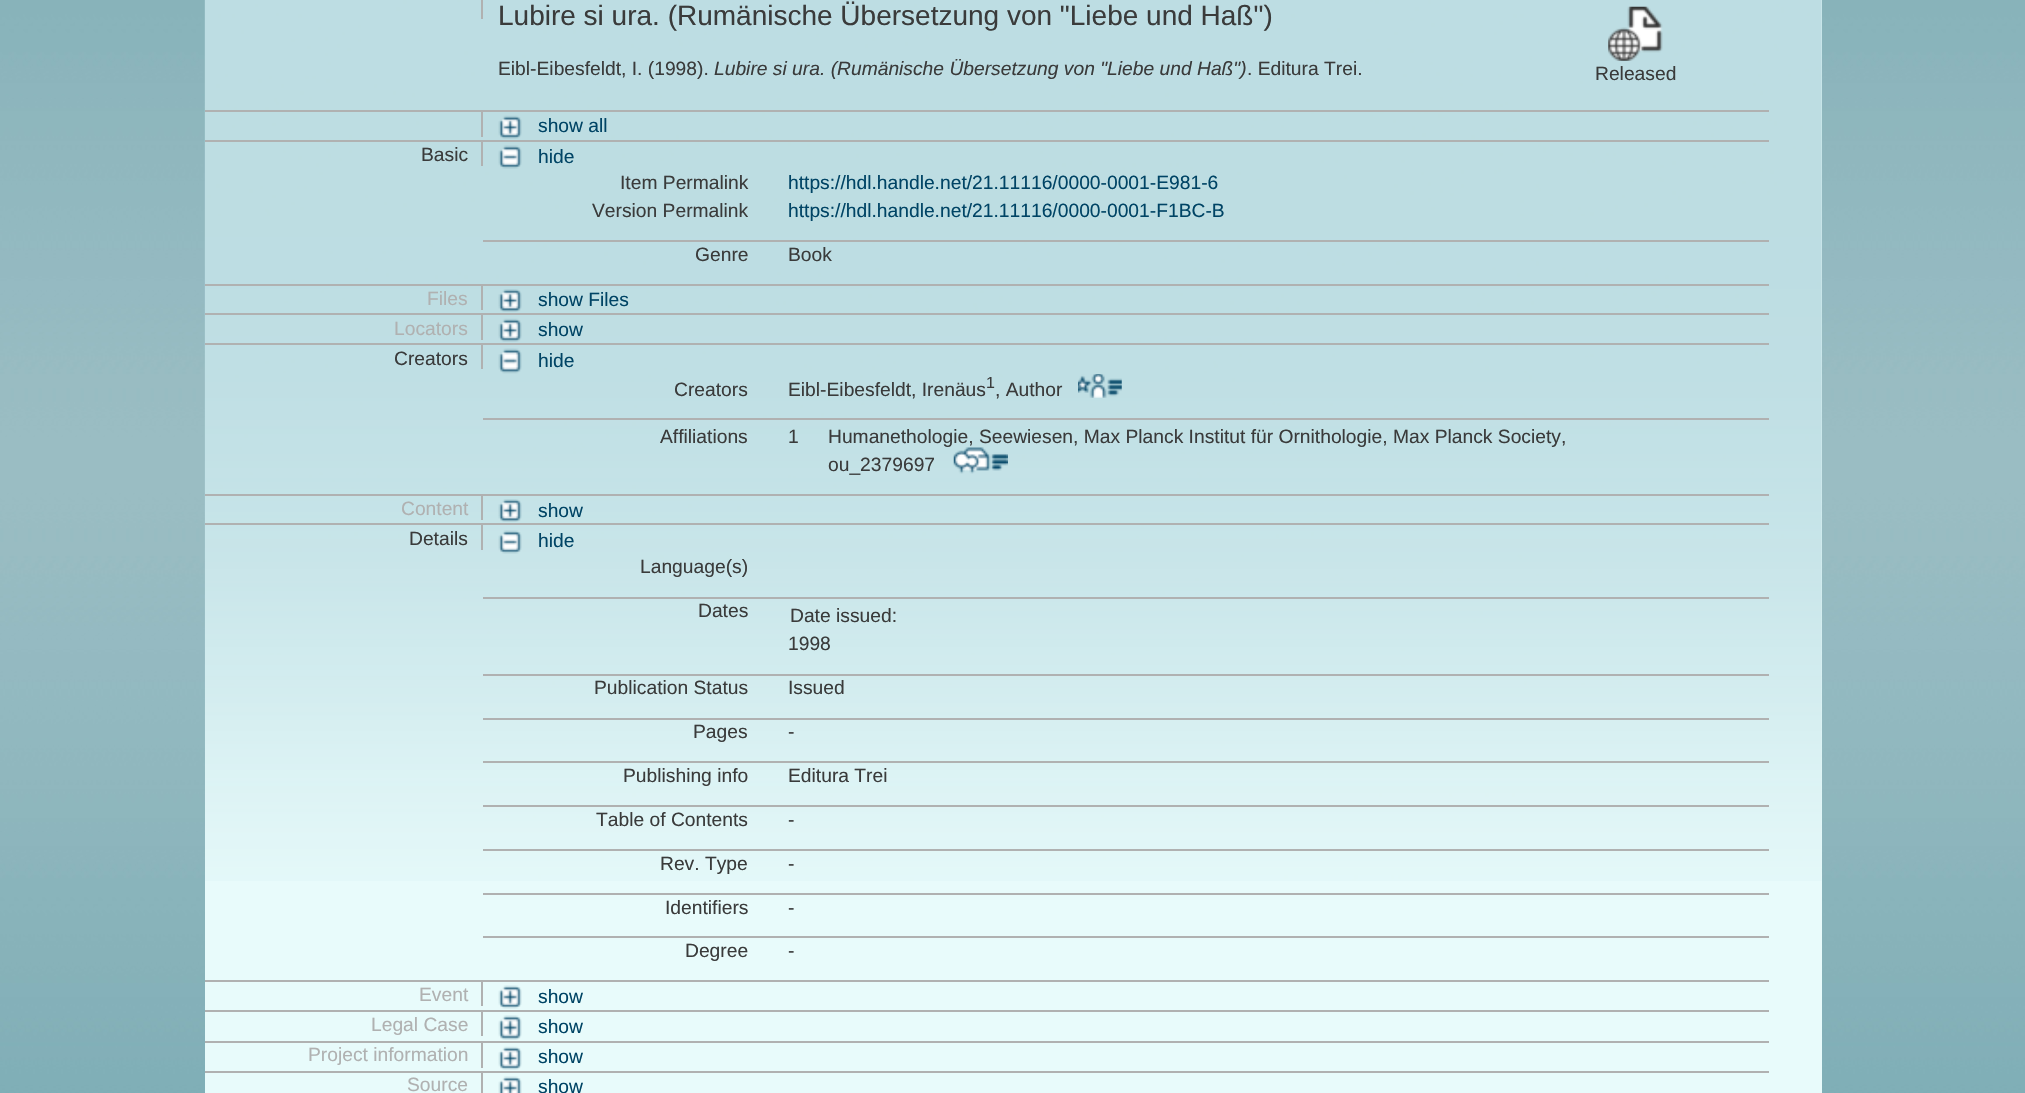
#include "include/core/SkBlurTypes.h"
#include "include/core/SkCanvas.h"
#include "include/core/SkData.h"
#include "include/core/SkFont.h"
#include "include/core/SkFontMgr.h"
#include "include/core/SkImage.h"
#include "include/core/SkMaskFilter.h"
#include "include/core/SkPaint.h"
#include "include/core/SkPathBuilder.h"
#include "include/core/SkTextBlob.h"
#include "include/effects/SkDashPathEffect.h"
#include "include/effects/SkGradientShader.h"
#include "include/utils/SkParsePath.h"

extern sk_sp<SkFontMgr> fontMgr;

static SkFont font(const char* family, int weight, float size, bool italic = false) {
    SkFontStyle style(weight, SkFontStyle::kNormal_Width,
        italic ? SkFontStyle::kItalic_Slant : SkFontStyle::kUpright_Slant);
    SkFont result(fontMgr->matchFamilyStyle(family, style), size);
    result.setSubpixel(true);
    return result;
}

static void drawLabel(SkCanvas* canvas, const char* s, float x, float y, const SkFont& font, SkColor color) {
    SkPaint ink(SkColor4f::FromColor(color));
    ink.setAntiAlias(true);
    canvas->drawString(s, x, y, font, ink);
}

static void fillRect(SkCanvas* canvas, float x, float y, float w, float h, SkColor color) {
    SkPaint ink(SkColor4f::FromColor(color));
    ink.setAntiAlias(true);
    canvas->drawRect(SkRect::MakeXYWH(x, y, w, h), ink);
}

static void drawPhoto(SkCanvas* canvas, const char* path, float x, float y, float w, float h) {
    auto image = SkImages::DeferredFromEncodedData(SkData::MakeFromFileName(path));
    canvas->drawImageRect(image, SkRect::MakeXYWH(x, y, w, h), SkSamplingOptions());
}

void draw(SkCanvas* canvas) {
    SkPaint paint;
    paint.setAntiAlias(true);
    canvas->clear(0xFFFFFFFF);
    drawPhoto(canvas, "assets/img1.png", 0, 0, 2025, 1093);
    fillRect(canvas, 205, 0, 1617, 1093, 0xFFE8FBFB);
    drawPhoto(canvas, "assets/img2.png", 204, 0, 1618, 881);
    fillRect(canvas, 481, 0, 2, 19, 0xFFB0B1B1);
    SkFont font1 = font("Liberation Sans", 400, 28);
    drawLabel(canvas, "Lubire si ura. (Rumänische Übersetzung von \"Liebe und Haß\")", 498, 25, font1, 0xFF3A3B3B);
    SkFont font2 = font("Liberation Sans", 400, 19.25f);
    drawLabel(canvas, "Eibl-Eibesfeldt, I. (1998).", 498, 75, font2, 0xFF3A3B3B);
    SkFont font3 = font("Liberation Sans", 400, 19.25f, true);
    drawLabel(canvas, "Lubire si ura. (Rumänische Übersetzung von \"Liebe und Haß\")", 714, 75, font3, 0xFF3A3B3B);
    drawLabel(canvas, ". Editura Trei.", 1247, 75, font2, 0xFF3A3B3B);
    drawPhoto(canvas, "assets/img3.png", 1608, 6, 55, 55);
    drawLabel(canvas, "Released", 1595, 80, font2, 0xFF3A3B3B);
    fillRect(canvas, 205, 110, 1564, 2, 0xFFB0B1B1);
    fillRect(canvas, 481, 112, 2, 25, 0xFFB0B1B1);
    drawPhoto(canvas, "assets/img4.png", 498, 115, 24, 24);
    drawLabel(canvas, "show all", 538, 132, font2, 0xFF004465);
    fillRect(canvas, 205, 140, 1564, 2, 0xFFB0B1B1);
    drawLabel(canvas, "Basic", 421, 161, font2, 0xFF3A3B3B);
    fillRect(canvas, 481, 142, 2, 24, 0xFFB0B1B1);
    drawPhoto(canvas, "assets/img5.png", 498, 145, 24, 24);
    drawLabel(canvas, "hide", 538, 163, font2, 0xFF004465);
    drawLabel(canvas, "Item Permalink", 620, 189, font2, 0xFF3A3B3B);
    drawLabel(canvas, "https://hdl.handle.net/21.11116/0000-0001-E981-6", 788, 189, font2, 0xFF004465);
    drawLabel(canvas, "Version Permalink", 592, 217, font2, 0xFF3A3B3B);
    drawLabel(canvas, "https://hdl.handle.net/21.11116/0000-0001-F1BC-B", 788, 217, font2, 0xFF004465);
    fillRect(canvas, 483, 240, 1286, 2, 0xFFB0B1B1);
    drawLabel(canvas, "Genre", 695, 261, font2, 0xFF3A3B3B);
    drawLabel(canvas, "Book", 788, 261, font2, 0xFF3A3B3B);
    fillRect(canvas, 205, 284, 1564, 2, 0xFFB0B1B1);
    drawLabel(canvas, "Files", 427, 305, font2, 0xFFB0B1B1);
    fillRect(canvas, 481, 285, 2, 25, 0xFFB0B1B1);
    drawPhoto(canvas, "assets/img6.png", 498, 289, 24, 23);
    drawLabel(canvas, "show Files", 538, 306, font2, 0xFF004465);
    fillRect(canvas, 205, 313, 1564, 2, 0xFFB0B1B1);
    drawLabel(canvas, "Locators", 394, 335, font2, 0xFFB0B1B1);
    fillRect(canvas, 481, 315, 2, 25, 0xFFB0B1B1);
    drawPhoto(canvas, "assets/img7.png", 498, 318, 24, 24);
    drawLabel(canvas, "show", 538, 336, font2, 0xFF004465);
    fillRect(canvas, 205, 343, 1564, 2, 0xFFB0B1B1);
    drawLabel(canvas, "Creators", 394, 365, font2, 0xFF3A3B3B);
    fillRect(canvas, 481, 345, 2, 24, 0xFFB0B1B1);
    drawPhoto(canvas, "assets/img8.png", 498, 348, 24, 26);
    drawLabel(canvas, "hide", 538, 367, font2, 0xFF004465);
    drawLabel(canvas, "Creators", 674, 396, font2, 0xFF3A3B3B);
    drawLabel(canvas, "Eibl-Eibesfeldt, Irenäus", 788, 396, font2, 0xFF3A3B3B);
    SkFont font4 = font("Liberation Sans", 400, 16);
    drawLabel(canvas, "1", 986, 388, font4, 0xFF3A3B3B);
    drawLabel(canvas, ", Author", 995, 396, font2, 0xFF3A3B3B);
    drawPhoto(canvas, "assets/img9.png", 1078, 374, 44, 24);
    fillRect(canvas, 483, 418, 1286, 2, 0xFFB0B1B1);
    drawLabel(canvas, "Affiliations", 660, 443, font2, 0xFF3A3B3B);
    drawLabel(canvas, "1", 788, 443, font2, 0xFF3A3B3B);
    drawLabel(canvas, "Humanethologie, Seewiesen, Max Planck Institut für Ornithologie, Max Planck Society,", 828, 443, font2, 0xFF3A3B3B);
    drawLabel(canvas, "ou_2379697", 828, 471, font2, 0xFF3A3B3B);
    drawPhoto(canvas, "assets/img10.png", 953, 447, 55, 27);
    fillRect(canvas, 205, 494, 1564, 2, 0xFFB0B1B1);
    drawLabel(canvas, "Content", 401, 515, font2, 0xFFB0B1B1);
    fillRect(canvas, 481, 495, 2, 25, 0xFFB0B1B1);
    drawPhoto(canvas, "assets/img11.png", 498, 499, 24, 23);
    drawLabel(canvas, "show", 538, 517, font2, 0xFF004465);
    fillRect(canvas, 205, 523, 1564, 2, 0xFFB0B1B1);
    drawLabel(canvas, "Details", 409, 545, font2, 0xFF3A3B3B);
    fillRect(canvas, 481, 525, 2, 25, 0xFFB0B1B1);
    drawPhoto(canvas, "assets/img12.png", 498, 530, 24, 24);
    drawLabel(canvas, "hide", 538, 547, font2, 0xFF004465);
    drawLabel(canvas, "Language(s)", 640, 573, font2, 0xFF3A3B3B);
    fillRect(canvas, 483, 597, 1286, 2, 0xFFB0B1B1);
    drawLabel(canvas, "Dates", 698, 617, font2, 0xFF3A3B3B);
    drawLabel(canvas, "Date issued:", 790, 622, font2, 0xFF3A3B3B);
    drawLabel(canvas, "1998", 788, 650, font2, 0xFF3A3B3B);
    fillRect(canvas, 483, 674, 1286, 2, 0xFFB0B1B1);
    drawLabel(canvas, "Publication Status", 594, 694, font2, 0xFF3A3B3B);
    drawLabel(canvas, "Issued", 788, 694, font2, 0xFF3A3B3B);
    fillRect(canvas, 483, 718, 1286, 2, 0xFFB0B1B1);
    drawLabel(canvas, "Pages", 693, 738, font2, 0xFF3A3B3B);
    drawLabel(canvas, "-", 788, 738, font2, 0xFF3A3B3B);
    fillRect(canvas, 483, 761, 1286, 2, 0xFFB0B1B1);
    drawLabel(canvas, "Publishing info", 623, 782, font2, 0xFF3A3B3B);
    drawLabel(canvas, "Editura Trei", 788, 782, font2, 0xFF3A3B3B);
    fillRect(canvas, 483, 805, 1286, 2, 0xFFB0B1B1);
    drawLabel(canvas, "Table of Contents", 596, 826, font2, 0xFF3A3B3B);
    drawLabel(canvas, "-", 788, 826, font2, 0xFF3A3B3B);
    fillRect(canvas, 483, 849, 1286, 2, 0xFFB0B1B1);
    drawLabel(canvas, "Rev. Type", 660, 870, font2, 0xFF3A3B3B);
    drawLabel(canvas, "-", 788, 870, font2, 0xFF3A3B3B);
    fillRect(canvas, 483, 893, 1286, 2, 0xFFB0B1B1);
    drawLabel(canvas, "Identifiers", 665, 914, font2, 0xFF3A3B3B);
    drawLabel(canvas, "-", 788, 914, font2, 0xFF3A3B3B);
    fillRect(canvas, 483, 936, 1286, 2, 0xFFB0B1B1);
    drawLabel(canvas, "Degree", 685, 957, font2, 0xFF3A3B3B);
    drawLabel(canvas, "-", 788, 957, font2, 0xFF3A3B3B);
    fillRect(canvas, 205, 980, 1564, 2, 0xFFB0B1B1);
    drawLabel(canvas, "Event", 419, 1001, font2, 0xFFB0B1B1);
    fillRect(canvas, 481, 982, 2, 24, 0xFFB0B1B1);
    drawPhoto(canvas, "assets/img13.png", 498, 985, 24, 24);
    drawLabel(canvas, "show", 538, 1003, font2, 0xFF004465);
    fillRect(canvas, 205, 1010, 1564, 2, 0xFFB0B1B1);
    drawLabel(canvas, "Legal Case", 371, 1031, font2, 0xFFB0B1B1);
    fillRect(canvas, 481, 1012, 2, 24, 0xFFB0B1B1);
    drawPhoto(canvas, "assets/img14.png", 498, 1015, 24, 25);
    drawLabel(canvas, "show", 538, 1033, font2, 0xFF004465);
    fillRect(canvas, 205, 1041, 1564, 2, 0xFFB0B1B1);
    drawLabel(canvas, "Project information", 308, 1061, font2, 0xFFB0B1B1);
    fillRect(canvas, 481, 1043, 2, 25, 0xFFB0B1B1);
    drawPhoto(canvas, "assets/img15.png", 498, 1046, 24, 24);
    drawLabel(canvas, "show", 538, 1063, font2, 0xFF004465);
    fillRect(canvas, 205, 1071, 1564, 2, 0xFFB0B1B1);
    drawLabel(canvas, "Source", 407, 1091, font2, 0xFFB0B1B1);
    fillRect(canvas, 481, 1073, 2, 20, 0xFFB0B1B1);
    drawPhoto(canvas, "assets/img16.png", 498, 1076, 24, 17);
    drawLabel(canvas, "show", 538, 1093, font2, 0xFF004465);
}
